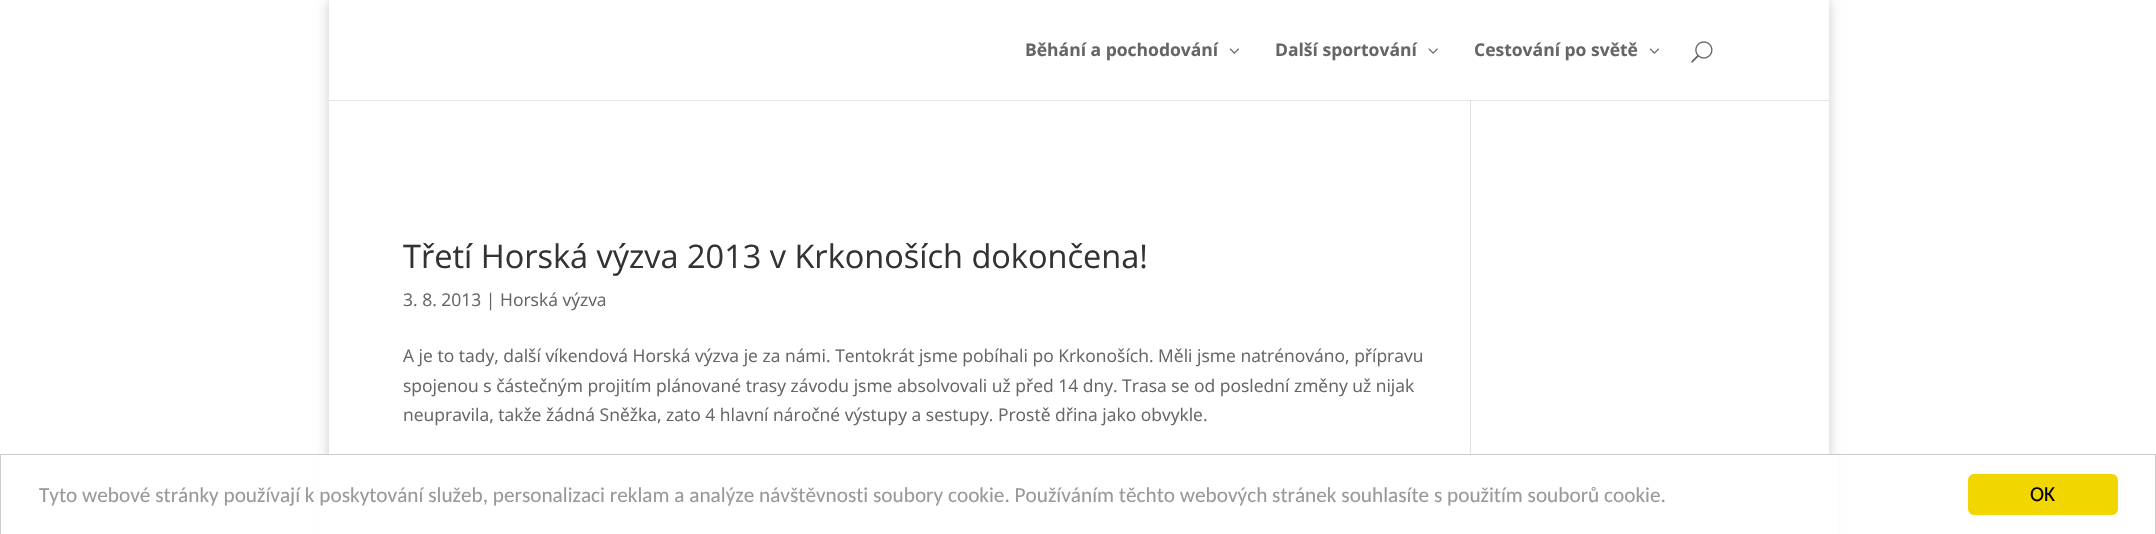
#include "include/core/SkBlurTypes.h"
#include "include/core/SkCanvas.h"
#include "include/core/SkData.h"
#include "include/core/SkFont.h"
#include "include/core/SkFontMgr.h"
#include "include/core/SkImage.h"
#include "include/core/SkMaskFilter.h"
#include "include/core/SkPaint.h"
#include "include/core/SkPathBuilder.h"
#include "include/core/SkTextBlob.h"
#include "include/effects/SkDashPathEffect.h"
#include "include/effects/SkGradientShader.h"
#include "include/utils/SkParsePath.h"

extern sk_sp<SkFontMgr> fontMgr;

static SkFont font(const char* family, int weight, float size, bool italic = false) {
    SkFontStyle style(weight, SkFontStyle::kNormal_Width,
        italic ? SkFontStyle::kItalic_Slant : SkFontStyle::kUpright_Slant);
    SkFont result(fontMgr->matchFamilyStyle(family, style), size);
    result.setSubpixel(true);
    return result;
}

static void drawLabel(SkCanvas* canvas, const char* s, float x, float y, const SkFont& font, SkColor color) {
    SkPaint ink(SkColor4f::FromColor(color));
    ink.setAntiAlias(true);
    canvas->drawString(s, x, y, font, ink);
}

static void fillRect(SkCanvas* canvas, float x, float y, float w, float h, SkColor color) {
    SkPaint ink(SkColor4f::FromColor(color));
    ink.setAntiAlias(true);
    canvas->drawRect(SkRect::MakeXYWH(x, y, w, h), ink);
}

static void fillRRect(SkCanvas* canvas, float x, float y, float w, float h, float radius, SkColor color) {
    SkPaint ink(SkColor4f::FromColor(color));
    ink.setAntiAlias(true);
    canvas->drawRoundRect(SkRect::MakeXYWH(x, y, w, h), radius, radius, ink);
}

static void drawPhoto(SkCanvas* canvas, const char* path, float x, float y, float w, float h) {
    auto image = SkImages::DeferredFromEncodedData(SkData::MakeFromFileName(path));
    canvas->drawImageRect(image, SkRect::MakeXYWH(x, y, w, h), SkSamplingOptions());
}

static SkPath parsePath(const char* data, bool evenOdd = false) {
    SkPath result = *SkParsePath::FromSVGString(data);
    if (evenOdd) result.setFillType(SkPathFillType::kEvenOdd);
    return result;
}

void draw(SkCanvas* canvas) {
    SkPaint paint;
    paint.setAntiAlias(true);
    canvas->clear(0xFFFFFFFF);
    paint.setColor(0x33000000);
    paint.setMaskFilter(SkMaskFilter::MakeBlur(kNormal_SkBlurStyle, 6));
    canvas->drawRect(SkRect::MakeXYWH(329, 0, 1500, 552), paint);
    paint.setMaskFilter(nullptr);
    fillRect(canvas, 329, 0, 1500, 454, 0xFFFFFFFF);
    fillRect(canvas, 1470, 100, 1, 354, 0xFFE2E2E2);
    paint.setColor(0x1A000000);
    canvas->drawPath(parsePath("M329 100V101H1829V1V100Z"), paint);
    SkFont font1 = font("Open Sans", 700, 17.5f);
    drawLabel(canvas, "Běhání a pochodování", 1025, 56, font1, 0xFF666666);
    drawPhoto(canvas, "assets/img1.png", 1229, 48, 10, 6);
    drawLabel(canvas, "Další sportování", 1275, 56, font1, 0xFF666666);
    drawPhoto(canvas, "assets/img2.png", 1428, 48, 10, 6);
    drawLabel(canvas, "Cestování po světě", 1474, 56, font1, 0xFF666666);
    drawPhoto(canvas, "assets/img1.png", 1649, 48, 10, 6);
    drawPhoto(canvas, "assets/img3.png", 1691, 41, 22, 22);
    SkFont font2 = font("Open Sans", 400, 32.5f);
    drawLabel(canvas, "Třetí Horská výzva 2013 v Krkonoších dokončena!", 403, 268, font2, 0xFF333333);
    SkFont font3 = font("Open Sans", 400, 17.5f);
    drawLabel(canvas, "3. 8. 2013 | Horská výzva", 403, 306, font3, 0xFF666666);
    drawLabel(canvas, "A je to tady, další víkendová Horská výzva je za námi. Tentokrát jsme pobíhali po Krkonoších. Měli jsme natrénováno, přípravu", 403, 362, font3, 0xFF666666);
    drawLabel(canvas, "spojenou s částečným projitím plánované trasy závodu jsme absolvovali už před 14 dny. Trasa se od poslední změny už nijak", 403, 392, font3, 0xFF666666);
    drawLabel(canvas, "neupravila, takže žádná Sněžka, zato 4 hlavní náročné výstupy a sestupy. Prostě dřina jako obvykle.", 403, 421, font3, 0xFF666666);
    fillRect(canvas, 319, 455, 1520, 79, 0xFFFFFFFF);
    paint.setStroke(true);
    paint.setStrokeWidth(1);
    paint.setColor(0xFFCCCCCC);
    canvas->drawRect(SkRect::MakeXYWH(0.5f, 454.5f, 2155, 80), paint);
    SkFont font4 = font("Carlito", 400, 21.25f);
    drawLabel(canvas, "Tyto webové stránky používají k poskytování služeb, personalizaci reklam a analýze návštěvnosti soubory cookie. Používáním těchto webových stránek souhlasíte s použitím souborů cookie.", 39, 502, font4, 0xFF999999);
    fillRRect(canvas, 1968, 474, 150, 41, 6, 0xFFF1D600);
    drawLabel(canvas, "OK", 2030, 501, font4, 0xFF000000);
}
